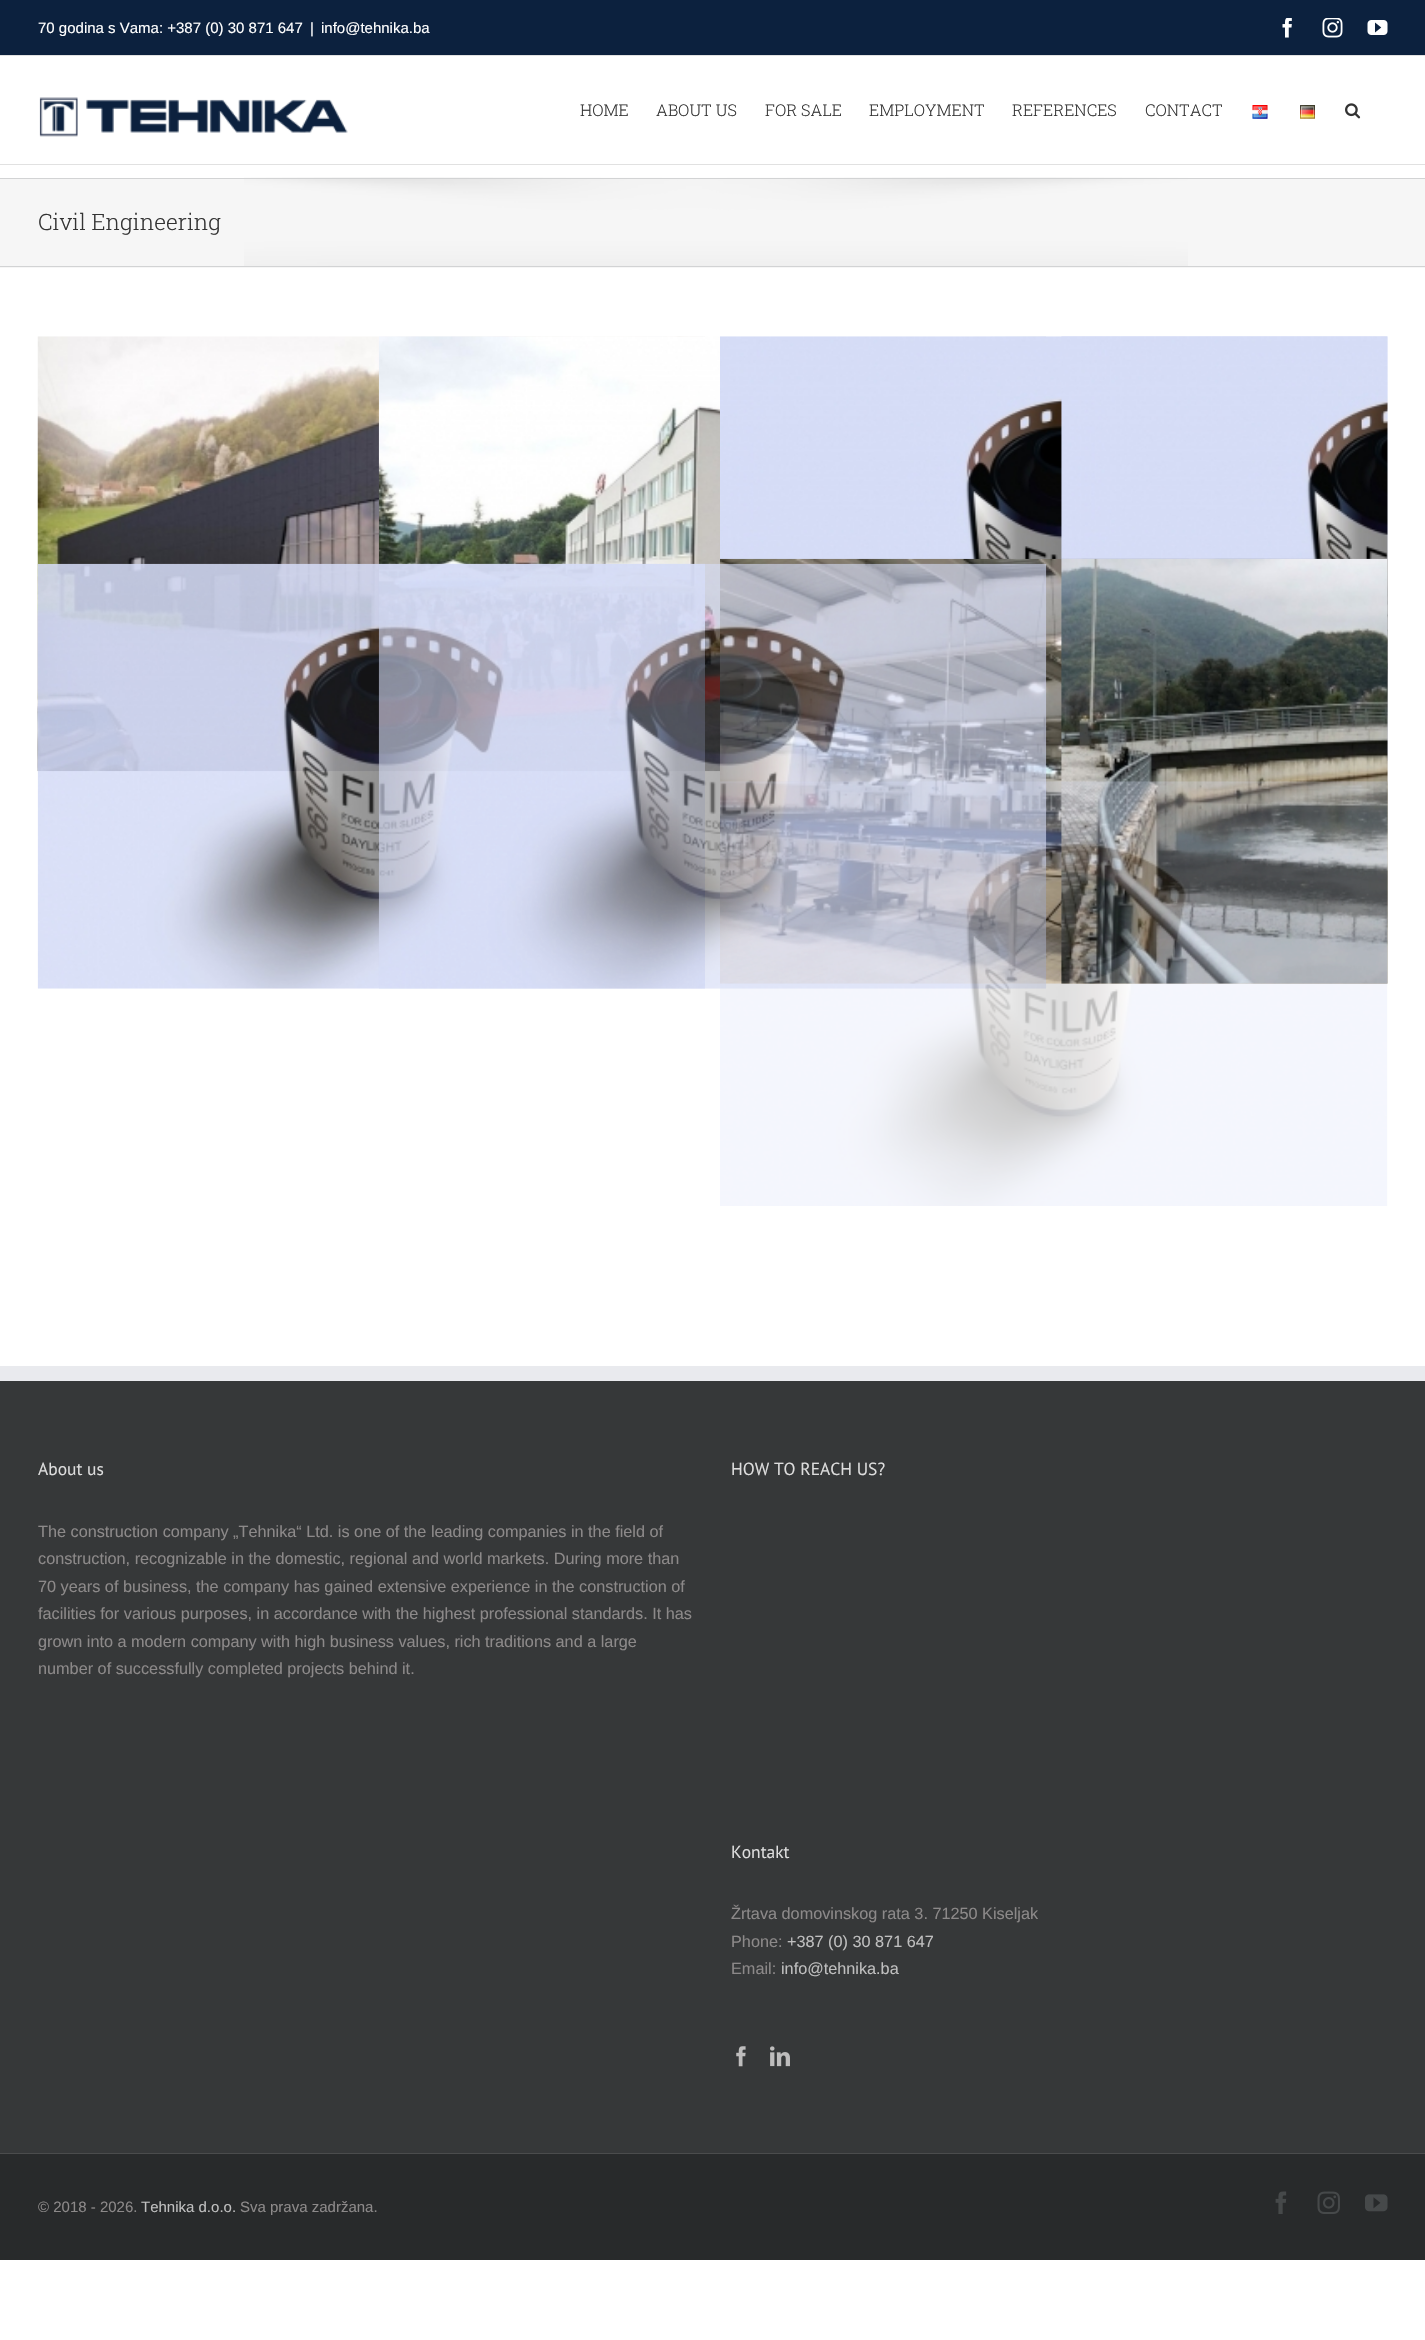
#include "include/core/SkBlurTypes.h"
#include "include/core/SkCanvas.h"
#include "include/core/SkData.h"
#include "include/core/SkFont.h"
#include "include/core/SkFontMgr.h"
#include "include/core/SkImage.h"
#include "include/core/SkMaskFilter.h"
#include "include/core/SkPaint.h"
#include "include/core/SkPathBuilder.h"
#include "include/core/SkTextBlob.h"
#include "include/effects/SkDashPathEffect.h"
#include "include/effects/SkGradientShader.h"
#include "include/utils/SkParsePath.h"

extern sk_sp<SkFontMgr> fontMgr;

static SkFont font(const char* family, int weight, float size, bool italic = false) {
    SkFontStyle style(weight, SkFontStyle::kNormal_Width,
        italic ? SkFontStyle::kItalic_Slant : SkFontStyle::kUpright_Slant);
    SkFont result(fontMgr->matchFamilyStyle(family, style), size);
    result.setSubpixel(true);
    return result;
}

static void drawLabel(SkCanvas* canvas, const char* s, float x, float y, const SkFont& font, SkColor color) {
    SkPaint ink(SkColor4f::FromColor(color));
    ink.setAntiAlias(true);
    canvas->drawString(s, x, y, font, ink);
}

static void fillRect(SkCanvas* canvas, float x, float y, float w, float h, SkColor color) {
    SkPaint ink(SkColor4f::FromColor(color));
    ink.setAntiAlias(true);
    canvas->drawRect(SkRect::MakeXYWH(x, y, w, h), ink);
}

static void drawPhoto(SkCanvas* canvas, const char* path, float x, float y, float w, float h) {
    auto image = SkImages::DeferredFromEncodedData(SkData::MakeFromFileName(path));
    canvas->drawImageRect(image, SkRect::MakeXYWH(x, y, w, h), SkSamplingOptions());
}

void draw(SkCanvas* canvas) {
    SkPaint paint;
    paint.setAntiAlias(true);
    canvas->clear(0xFFFFFFFF);
    fillRect(canvas, 0, 0, 1425, 55, 0xFF0C213E);
    fillRect(canvas, 0, 55, 1425, 1, 0xFFE1E1E1);
    SkFont font1 = font("Liberation Sans", 400, 15);
    drawLabel(canvas, "70 godina s Vama: +387 (0) 30 871 647", 38, 33, font1, 0xFFFFFFFF);
    drawLabel(canvas, "|", 310, 33, font1, 0xFFFFFFFF);
    drawLabel(canvas, "info@tehnika.ba", 321, 33, font1, 0xFFFFFFFF);
    drawPhoto(canvas, "assets/img1.png", 1282, 18, 10, 20);
    drawPhoto(canvas, "assets/img2.png", 1322, 18, 21, 20);
    drawPhoto(canvas, "assets/img3.png", 1367, 20, 21, 15);
    fillRect(canvas, 0, 164, 1425, 1, 0xFFE1E1E1);
    drawPhoto(canvas, "assets/img4.png", 39, 97, 309, 40);
    SkFont font2 = font("Roboto Slab", 300, 16.25f);
    drawLabel(canvas, "HOME", 580, 116, font2, 0xFF333333);
    drawLabel(canvas, "ABOUT US", 656, 116, font2, 0xFF333333);
    drawLabel(canvas, "FOR SALE", 765, 116, font2, 0xFF333333);
    drawLabel(canvas, "EMPLOYMENT", 869, 116, font2, 0xFF333333);
    drawLabel(canvas, "REFERENCES", 1012, 116, font2, 0xFF333333);
    drawLabel(canvas, "CONTACT", 1145, 116, font2, 0xFF333333);
    drawPhoto(canvas, "assets/img5.png", 1252, 105, 16, 14);
    drawPhoto(canvas, "assets/img6.png", 1300, 105, 15, 14);
    drawPhoto(canvas, "assets/img7.png", 1345, 103, 16, 16);
    fillRect(canvas, 0, 179, 1425, 89, 0xFFF6F6F6);
    drawPhoto(canvas, "assets/img8.png", 244, 177, 944, 89);
    fillRect(canvas, 0, 178, 1425, 1, 0xFFD2D3D4);
    fillRect(canvas, 0, 266, 1425, 1, 0xFFD2D3D4);
    SkFont font3 = font("Roboto Slab", 300, 22.5f);
    drawLabel(canvas, "Civil Engineering", 38, 230, font3, 0xFF333333);
    drawPhoto(canvas, "assets/img9.png", 37, 336, 668, 436);
    drawPhoto(canvas, "assets/img10.png", 378, 336, 669, 436);
    drawPhoto(canvas, "assets/img11.png", 720, 336, 668, 425);
    drawPhoto(canvas, "assets/img12.png", 1061, 336, 327, 425);
    drawPhoto(canvas, "assets/img13.png", 720, 558, 668, 426);
    drawPhoto(canvas, "assets/img14.png", 37, 563, 668, 426);
    drawPhoto(canvas, "assets/img15.png", 378, 563, 669, 426);
    drawPhoto(canvas, "assets/img16.png", 1061, 558, 327, 426);
    drawPhoto(canvas, "assets/img17.png", 720, 781, 668, 425);
    fillRect(canvas, 0, 1381, 1425, 772, 0xFF363839);
    fillRect(canvas, 0, 1366, 1425, 15, 0xFFE9EAEE);
    SkFont font4 = font("PT Sans", 400, 17.5f);
    drawLabel(canvas, "About us", 38, 1475, font4, 0xFFDDDDDD);
    SkFont font5 = font("Liberation Sans", 400, 16.25f);
    drawLabel(canvas, "The construction company „Tehnika“ Ltd. is one of the leading companies in the field of", 38, 1537, font5, 0xFF8C8989);
    drawLabel(canvas, "construction, recognizable in the domestic, regional and world markets. During more than", 38, 1564, font5, 0xFF8C8989);
    drawLabel(canvas, "70 years of business, the company has gained extensive experience in the construction of", 38, 1592, font5, 0xFF8C8989);
    drawLabel(canvas, "facilities for various purposes, in accordance with the highest professional standards. It has", 38, 1619, font5, 0xFF8C8989);
    drawLabel(canvas, "grown into a modern company with high business values, rich traditions and a large", 38, 1647, font5, 0xFF8C8989);
    drawLabel(canvas, "number of successfully completed projects behind it.", 38, 1674, font5, 0xFF8C8989);
    drawLabel(canvas, "HOW TO REACH US?", 731, 1475, font4, 0xFFDDDDDD);
    drawLabel(canvas, "Kontakt", 731, 1858, font4, 0xFFDDDDDD);
    drawLabel(canvas, "Žrtava domovinskog rata 3. 71250 Kiseljak", 731, 1919, font5, 0xFF8C8989);
    drawLabel(canvas, "Phone:", 731, 1947, font5, 0xFF8C8989);
    drawLabel(canvas, "+387 (0) 30 871 647", 787, 1947, font5, 0xFFBFBFBF);
    drawLabel(canvas, "Email:", 731, 1974, font5, 0xFF8C8989);
    drawLabel(canvas, "info@tehnika.ba", 781, 1974, font5, 0xFFBFBFBF);
    drawPhoto(canvas, "assets/img18.png", 736, 2046, 10, 21);
    drawPhoto(canvas, "assets/img19.png", 770, 2046, 20, 21);
    fillRect(canvas, 0, 2154, 1425, 106, 0xFF282A2B);
    fillRect(canvas, 0, 2153, 1425, 1, 0xFF4B4C4D);
    drawLabel(canvas, "© 2018 - 2026.", 38, 2212, font1, 0xFF8C8989);
    drawLabel(canvas, "Tehnika d.o.o.", 141, 2212, font1, 0xFFBFBFBF);
    drawLabel(canvas, "Sva prava zadržana.", 240, 2212, font1, 0xFF8C8989);
    drawPhoto(canvas, "assets/img20.png", 1275, 2191, 12, 23);
    drawPhoto(canvas, "assets/img21.png", 1317, 2191, 23, 23);
    drawPhoto(canvas, "assets/img22.png", 1365, 2194, 23, 18);
}
